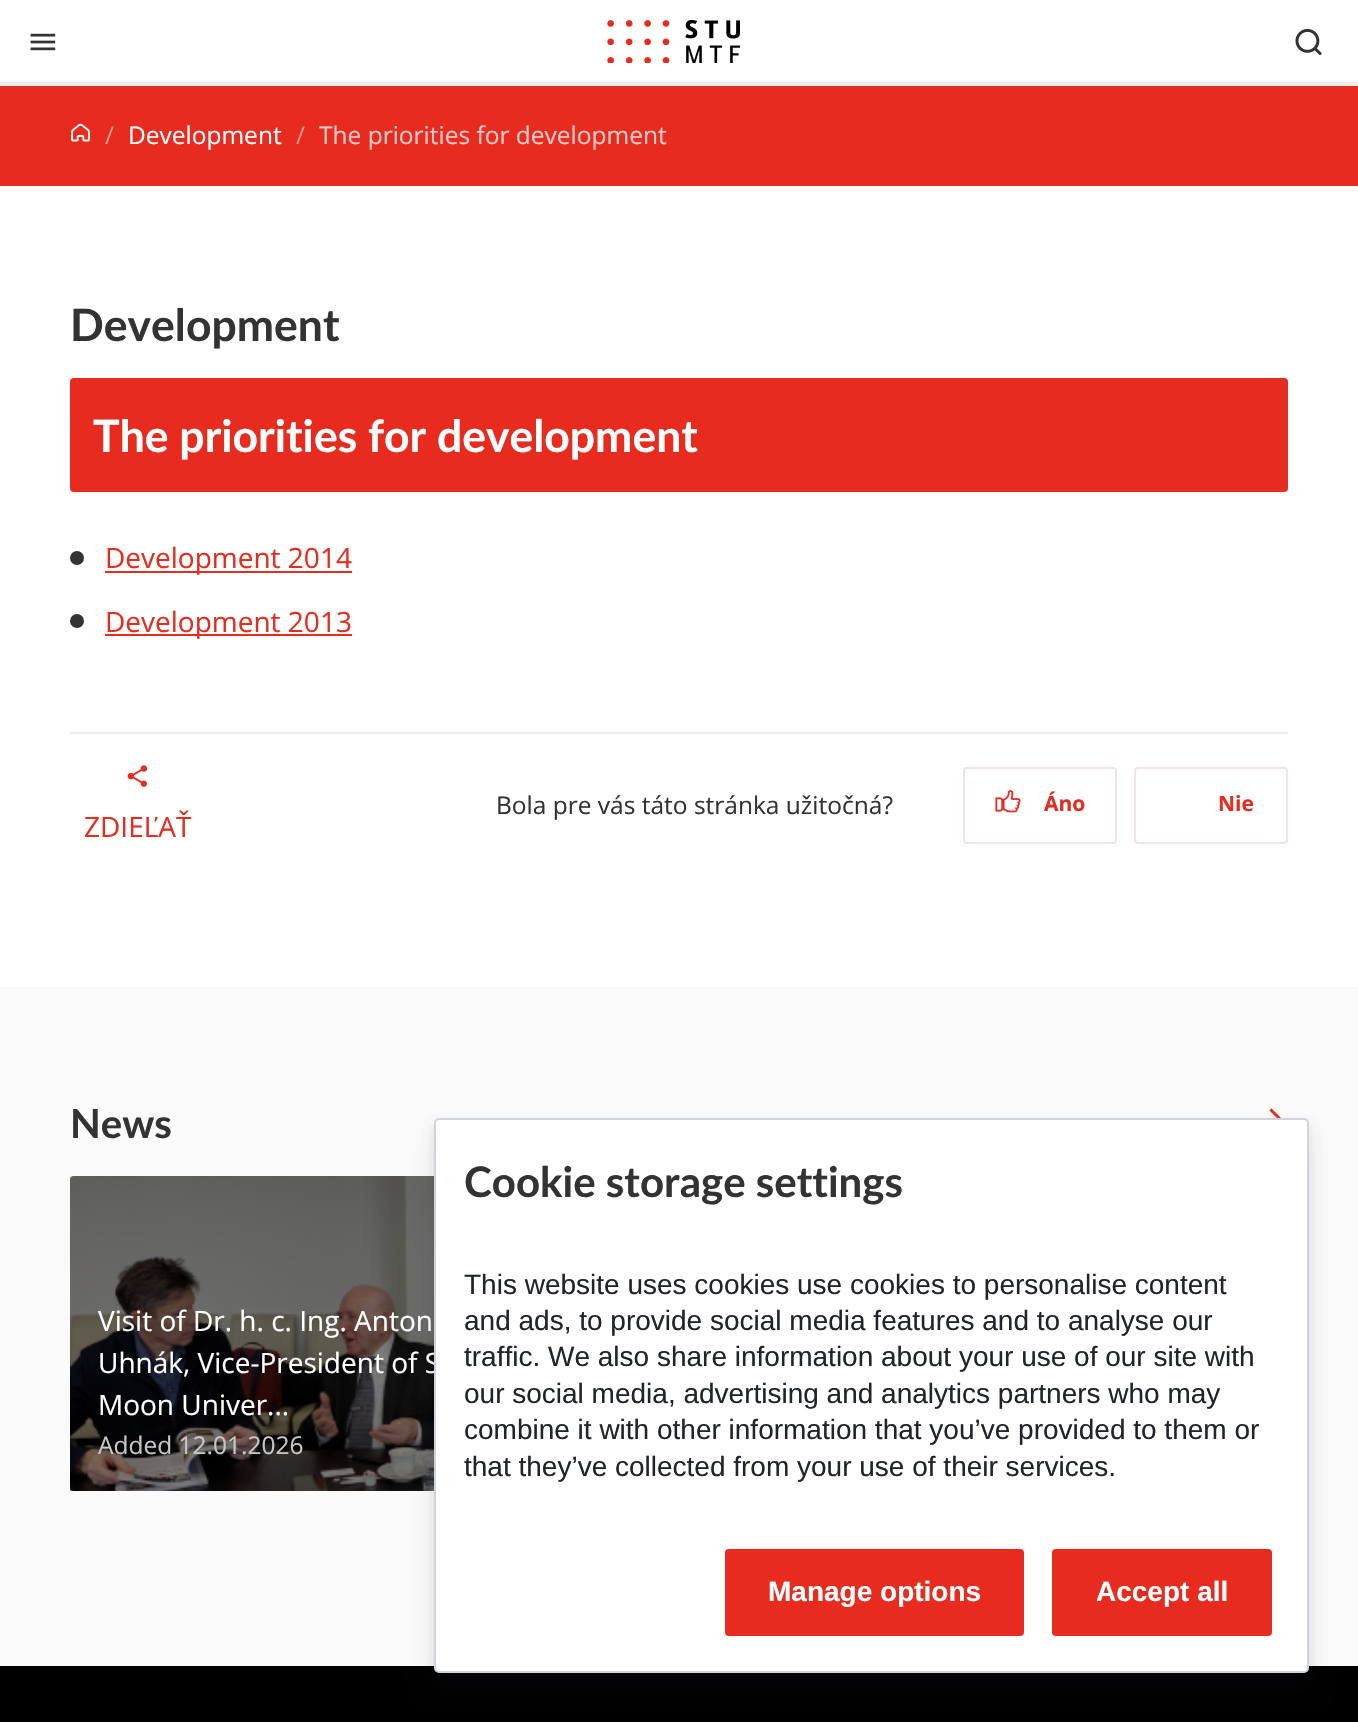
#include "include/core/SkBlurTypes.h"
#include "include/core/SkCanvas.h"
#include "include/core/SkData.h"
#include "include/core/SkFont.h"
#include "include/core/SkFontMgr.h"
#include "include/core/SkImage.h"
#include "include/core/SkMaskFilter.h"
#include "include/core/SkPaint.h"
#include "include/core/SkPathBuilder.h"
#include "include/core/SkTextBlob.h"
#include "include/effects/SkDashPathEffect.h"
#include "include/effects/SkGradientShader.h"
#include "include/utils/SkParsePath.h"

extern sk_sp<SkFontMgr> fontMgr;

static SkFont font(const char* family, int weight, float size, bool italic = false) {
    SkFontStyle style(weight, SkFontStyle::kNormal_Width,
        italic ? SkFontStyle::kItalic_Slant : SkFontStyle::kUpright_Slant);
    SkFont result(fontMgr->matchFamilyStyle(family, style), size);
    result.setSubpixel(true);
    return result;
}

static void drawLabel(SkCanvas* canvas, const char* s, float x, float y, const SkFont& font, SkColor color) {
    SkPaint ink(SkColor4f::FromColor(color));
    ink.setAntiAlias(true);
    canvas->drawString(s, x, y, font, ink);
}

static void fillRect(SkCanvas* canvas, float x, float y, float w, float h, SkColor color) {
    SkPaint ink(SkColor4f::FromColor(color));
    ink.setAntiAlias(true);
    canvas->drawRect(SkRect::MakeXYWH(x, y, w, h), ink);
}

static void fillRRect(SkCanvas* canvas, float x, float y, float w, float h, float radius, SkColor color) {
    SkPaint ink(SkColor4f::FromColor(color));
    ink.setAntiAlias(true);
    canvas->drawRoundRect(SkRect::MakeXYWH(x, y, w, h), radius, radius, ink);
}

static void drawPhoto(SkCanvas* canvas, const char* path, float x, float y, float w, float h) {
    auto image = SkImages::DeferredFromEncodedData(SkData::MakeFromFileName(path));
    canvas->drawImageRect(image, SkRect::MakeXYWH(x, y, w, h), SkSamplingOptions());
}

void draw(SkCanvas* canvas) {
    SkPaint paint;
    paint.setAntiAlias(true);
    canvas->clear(0xFFFAFAFA);
    fillRect(canvas, 0, 0, 1358, 82, 0xFFFFFFFF);
    drawPhoto(canvas, "assets/img1.png", 30, 33, 26, 18);
    drawPhoto(canvas, "assets/img2.png", 607, 19, 133, 44);
    drawPhoto(canvas, "assets/img3.png", 1295, 28, 27, 27);
    fillRect(canvas, 0, 82, 1358, 4, 0xFFEEEEEE);
    fillRect(canvas, 0, 86, 1358, 100, 0xFFE72B1E);
    drawPhoto(canvas, "assets/img4.png", 71, 123, 19, 19);
    SkFont font1 = font("Open Sans", 400, 24.5f);
    drawLabel(canvas, "/", 105, 144, font1, 0xFFF3958F);
    drawLabel(canvas, "Development", 128, 144, font1, 0xFFFFFFFF);
    drawLabel(canvas, "/", 296, 144, font1, 0xFFF3958F);
    drawLabel(canvas, "The priorities for development", 319, 144, font1, 0xFFF9CAC7);
    fillRect(canvas, 0, 186, 1358, 801, 0xFFFFFFFF);
    SkFont font2 = font("Lato", 700, 44.5f);
    drawLabel(canvas, "Development", 70, 341, font2, 0xFF333333);
    paint.setColor(0xFFE72B1E);
    canvas->drawRoundRect(SkRect::MakeXYWH(71, 379, 1216, 112), 3, 3, paint);
    paint.setStroke(true);
    paint.setStrokeWidth(2);
    canvas->drawRoundRect(SkRect::MakeXYWH(71, 379, 1216, 112), 3, 3, paint);
    drawLabel(canvas, "The priorities for development", 93, 452, font2, 0xFFFFFFFF);
    paint.setStroke(false);
    paint.setColor(0xFF333333);
    canvas->drawCircle(77, 558, 7, paint);
    fillRect(canvas, 105, 571, 247, 2, 0xFFE72B1E);
    SkFont font3 = font("Open Sans", 400, 28);
    drawLabel(canvas, "Development 2014", 105, 568, font3, 0xFFE72B1E);
    canvas->drawCircle(77, 621, 7, paint);
    fillRect(canvas, 105, 634, 247, 2, 0xFFE72B1E);
    drawLabel(canvas, "Development 2013", 105, 632, font3, 0xFFE72B1E);
    fillRect(canvas, 70, 732, 1218, 2, 0xFFEEEEEE);
    drawLabel(canvas, "Bola pre vás táto stránka užitočná?", 496, 814, font1, 0xFF333333);
    paint.setStroke(true);
    paint.setColor(0xFFF0E4E6);
    canvas->drawRoundRect(SkRect::MakeXYWH(964, 768, 152, 75), 3, 3, paint);
    drawPhoto(canvas, "assets/img5.png", 995, 790, 26, 23);
    SkFont font4 = font("Open Sans", 700, 21);
    drawLabel(canvas, "Áno", 1044, 811, font4, 0xFFE72B1E);
    canvas->drawRoundRect(SkRect::MakeXYWH(1135, 768, 152, 75), 3, 3, paint);
    drawLabel(canvas, "Nie", 1218, 811, font4, 0xFFE72B1E);
    drawPhoto(canvas, "assets/img6.png", 127, 765, 21, 22);
    drawLabel(canvas, "ZDIEĽAŤ", 84, 837, font3, 0xFFE72B1E);
    SkFont font5 = font("Lato", 700, 40);
    drawLabel(canvas, "News", 70, 1138, font5, 0xFF333333);
    drawPhoto(canvas, "assets/img7.png", 1269, 1108, 12, 10);
    fillRRect(canvas, 70, 1176, 490, 315, 4, 0xFF000000);
    drawPhoto(canvas, "assets/img8.png", 70, 1176, 364, 315);
    drawLabel(canvas, "Visit of Dr. h. c. Ing. Anton", 98, 1331, font3, 0xFFFFFFFF);
    drawLabel(canvas, "Uhnák, Vice-President of S", 98, 1373, font3, 0xFFFFFFFF);
    drawLabel(canvas, "Moon Univer...", 98, 1415, font3, 0xFFFFFFFF);
    drawLabel(canvas, "Added 12.01.2026", 98, 1454, font1, 0xFFC8C7C7);
    fillRect(canvas, 0, 1666, 1358, 56, 0xFF000000);
    paint.setStroke(false);
    paint.setColor(0x12000000);
    paint.setMaskFilter(SkMaskFilter::MakeBlur(kNormal_SkBlurStyle, 5));
    canvas->drawRoundRect(SkRect::MakeXYWH(434, 1124, 875, 554), 5, 5, paint);
    paint.setMaskFilter(nullptr);
    paint.setColor(0x1A32325D);
    paint.setMaskFilter(SkMaskFilter::MakeBlur(kNormal_SkBlurStyle, 12));
    canvas->drawRoundRect(SkRect::MakeXYWH(434, 1131, 875, 554), 5, 5, paint);
    paint.setMaskFilter(nullptr);
    paint.setColor(0xFFFFFFFF);
    canvas->drawRoundRect(SkRect::MakeXYWH(435, 1119, 873, 553), 4, 4, paint);
    paint.setStroke(true);
    paint.setColor(0xFFCED4DA);
    canvas->drawRoundRect(SkRect::MakeXYWH(435, 1119, 873, 553), 4, 4, paint);
    SkFont font6 = font("Lato", 700, 42);
    drawLabel(canvas, "Cookie storage settings", 464, 1197, font6, 0xFF333333);
    SkFont font7 = font("Liberation Sans", 400, 28);
    drawLabel(canvas, "This website uses cookies use cookies to personalise content", 464, 1294, font7, 0xFF212529);
    drawLabel(canvas, "and ads, to provide social media features and to analyse our", 464, 1330, font7, 0xFF212529);
    drawLabel(canvas, "traffic. We also share information about your use of our site with", 464, 1366, font7, 0xFF212529);
    drawLabel(canvas, "our social media, advertising and analytics partners who may", 464, 1403, font7, 0xFF212529);
    drawLabel(canvas, "combine it with other information that you’ve provided to them or", 464, 1439, font7, 0xFF212529);
    drawLabel(canvas, "that they’ve collected from your use of their services.", 464, 1476, font7, 0xFF212529);
    paint.setStroke(false);
    paint.setColor(0xFFE72B1E);
    canvas->drawRoundRect(SkRect::MakeXYWH(726, 1550, 297, 85), 3, 3, paint);
    paint.setStroke(true);
    canvas->drawRoundRect(SkRect::MakeXYWH(726, 1550, 297, 85), 3, 3, paint);
    SkFont font8 = font("Liberation Sans", 700, 28);
    drawLabel(canvas, "Manage options", 768, 1601, font8, 0xFFFFFFFF);
    paint.setStroke(false);
    canvas->drawRoundRect(SkRect::MakeXYWH(1053, 1550, 218, 85), 3, 3, paint);
    paint.setStroke(true);
    canvas->drawRoundRect(SkRect::MakeXYWH(1053, 1550, 218, 85), 3, 3, paint);
    drawLabel(canvas, "Accept all", 1096, 1601, font8, 0xFFFFFFFF);
}
